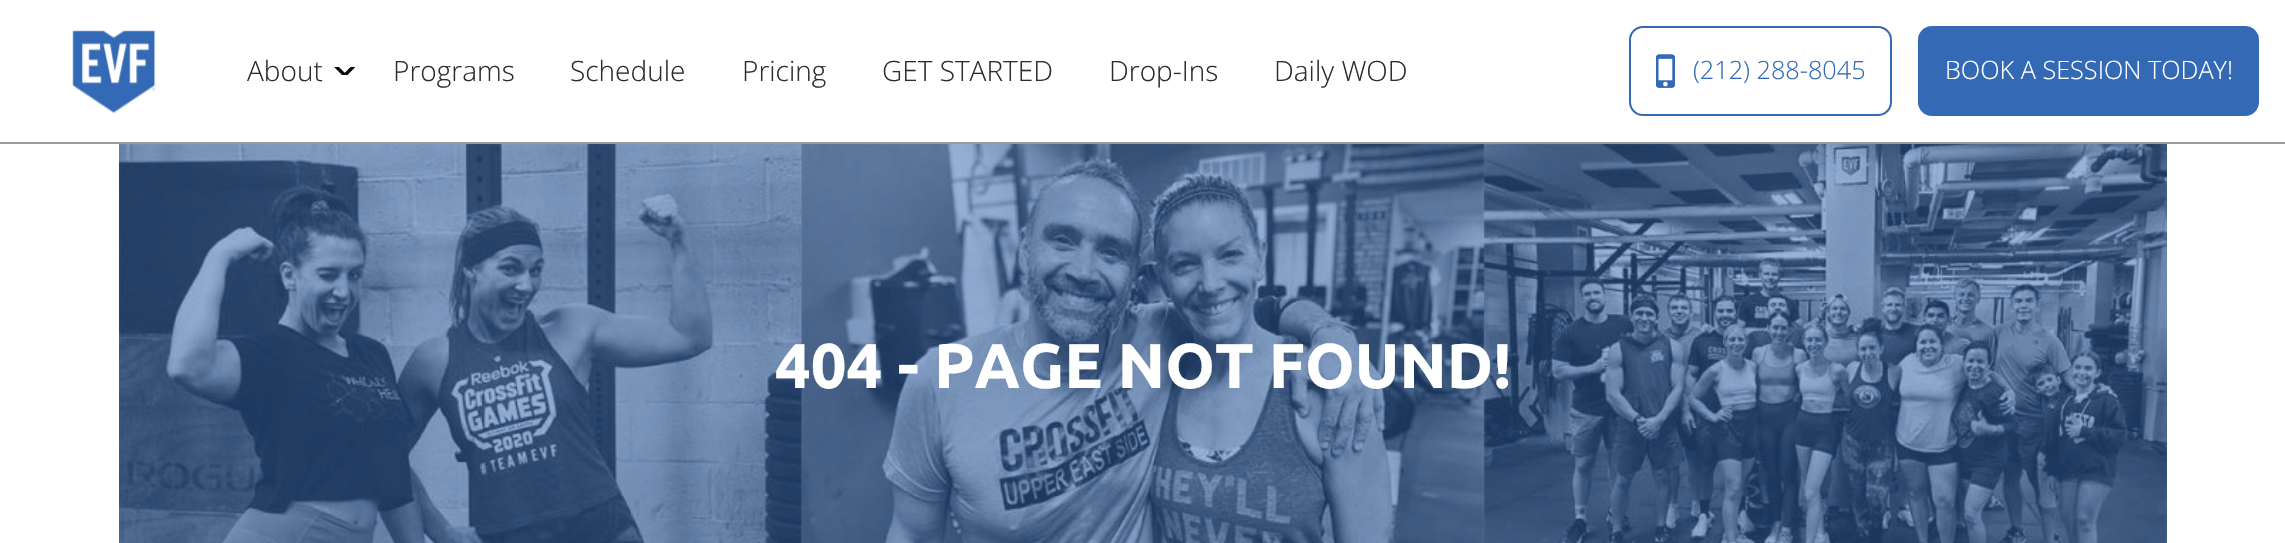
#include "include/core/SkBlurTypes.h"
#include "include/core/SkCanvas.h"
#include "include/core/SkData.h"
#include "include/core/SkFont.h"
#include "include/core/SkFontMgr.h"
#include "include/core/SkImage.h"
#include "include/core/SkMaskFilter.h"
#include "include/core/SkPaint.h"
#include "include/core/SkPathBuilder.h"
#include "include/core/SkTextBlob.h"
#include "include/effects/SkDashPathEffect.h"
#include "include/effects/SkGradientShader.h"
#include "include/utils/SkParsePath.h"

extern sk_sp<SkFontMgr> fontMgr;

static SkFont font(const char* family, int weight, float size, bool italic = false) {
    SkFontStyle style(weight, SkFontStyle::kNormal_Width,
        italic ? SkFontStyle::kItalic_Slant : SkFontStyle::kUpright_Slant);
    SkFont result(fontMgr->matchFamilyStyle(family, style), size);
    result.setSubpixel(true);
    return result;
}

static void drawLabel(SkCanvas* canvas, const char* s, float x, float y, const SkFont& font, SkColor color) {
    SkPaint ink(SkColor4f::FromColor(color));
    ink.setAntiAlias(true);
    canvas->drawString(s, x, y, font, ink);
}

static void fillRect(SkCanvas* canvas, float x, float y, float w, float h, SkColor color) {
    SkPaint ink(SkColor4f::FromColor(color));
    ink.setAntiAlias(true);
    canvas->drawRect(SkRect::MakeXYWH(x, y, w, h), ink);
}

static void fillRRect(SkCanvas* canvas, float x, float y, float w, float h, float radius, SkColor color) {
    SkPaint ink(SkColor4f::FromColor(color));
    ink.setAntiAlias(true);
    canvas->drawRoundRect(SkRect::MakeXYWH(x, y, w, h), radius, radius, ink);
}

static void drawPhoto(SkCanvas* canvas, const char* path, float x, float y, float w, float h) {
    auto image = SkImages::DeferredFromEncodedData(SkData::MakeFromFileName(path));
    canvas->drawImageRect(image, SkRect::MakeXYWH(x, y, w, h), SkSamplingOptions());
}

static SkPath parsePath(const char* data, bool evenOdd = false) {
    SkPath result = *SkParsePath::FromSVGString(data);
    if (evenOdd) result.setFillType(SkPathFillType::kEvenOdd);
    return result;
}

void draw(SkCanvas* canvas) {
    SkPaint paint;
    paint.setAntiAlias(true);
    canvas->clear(0xFFFFFFFF);
    fillRect(canvas, 0, 142, 2285, 2, 0xFFA19999);
    drawPhoto(canvas, "assets/img1.png", 72, 30, 84, 84);
    SkFont font1 = font("Open Sans", 300, 28);
    drawLabel(canvas, "About", 247, 81, font1, 0xFF2A2C2E);
    canvas->save();
    canvas->clipRect(SkRect::MakeXYWH(334, 67, 21, 8));
    paint.setStroke(true);
    paint.setStrokeWidth(3.5f);
    paint.setStrokeCap(SkPaint::kRound_Cap);
    paint.setStrokeJoin(SkPaint::kRound_Join);
    paint.setColor(0xFF0A0A0A);
    canvas->drawPath(parsePath("M353.5 66.5L346.5 73.5C344.5 75.5 345 75.5 343 73.5L336 66.5"), paint);
    canvas->restore();
    drawLabel(canvas, "Programs", 393, 81, font1, 0xFF2A2C2E);
    drawLabel(canvas, "Schedule", 570, 81, font1, 0xFF2A2C2E);
    drawLabel(canvas, "Pricing", 742, 81, font1, 0xFF2A2C2E);
    drawLabel(canvas, "GET STARTED", 882, 81, font1, 0xFF2A2C2E);
    drawLabel(canvas, "Drop-Ins", 1109, 81, font1, 0xFF2A2C2E);
    drawLabel(canvas, "Daily WOD", 1274, 81, font1, 0xFF2A2C2E);
    paint.setStrokeWidth(2);
    paint.setStrokeCap(SkPaint::kButt_Cap);
    paint.setStrokeJoin(SkPaint::kMiter_Join);
    paint.setColor(0xFF3469B5);
    canvas->drawRoundRect(SkRect::MakeXYWH(1630, 27, 261, 88), 13, 13, paint);
    drawPhoto(canvas, "assets/img2.png", 1656, 54, 19, 34);
    SkFont font2 = font("Open Sans", 300, 25.25f);
    drawLabel(canvas, "(212) 288-8045", 1693, 79, font2, 0xFF3469B5);
    fillRRect(canvas, 1918, 26, 341, 90, 14, 0xFF3469B5);
    drawLabel(canvas, "BOOK A SESSION TODAY!", 1945, 79, font2, 0xFFFFFFFF);
    drawPhoto(canvas, "assets/img3.png", 119, 144, 2048, 399);
    SkFont font3 = font("Ubuntu", 700, 63);
    drawLabel(canvas, "404 - PAGE NOT FOUND!", 775, 388, font3, 0xFFFFFFFF);
}
